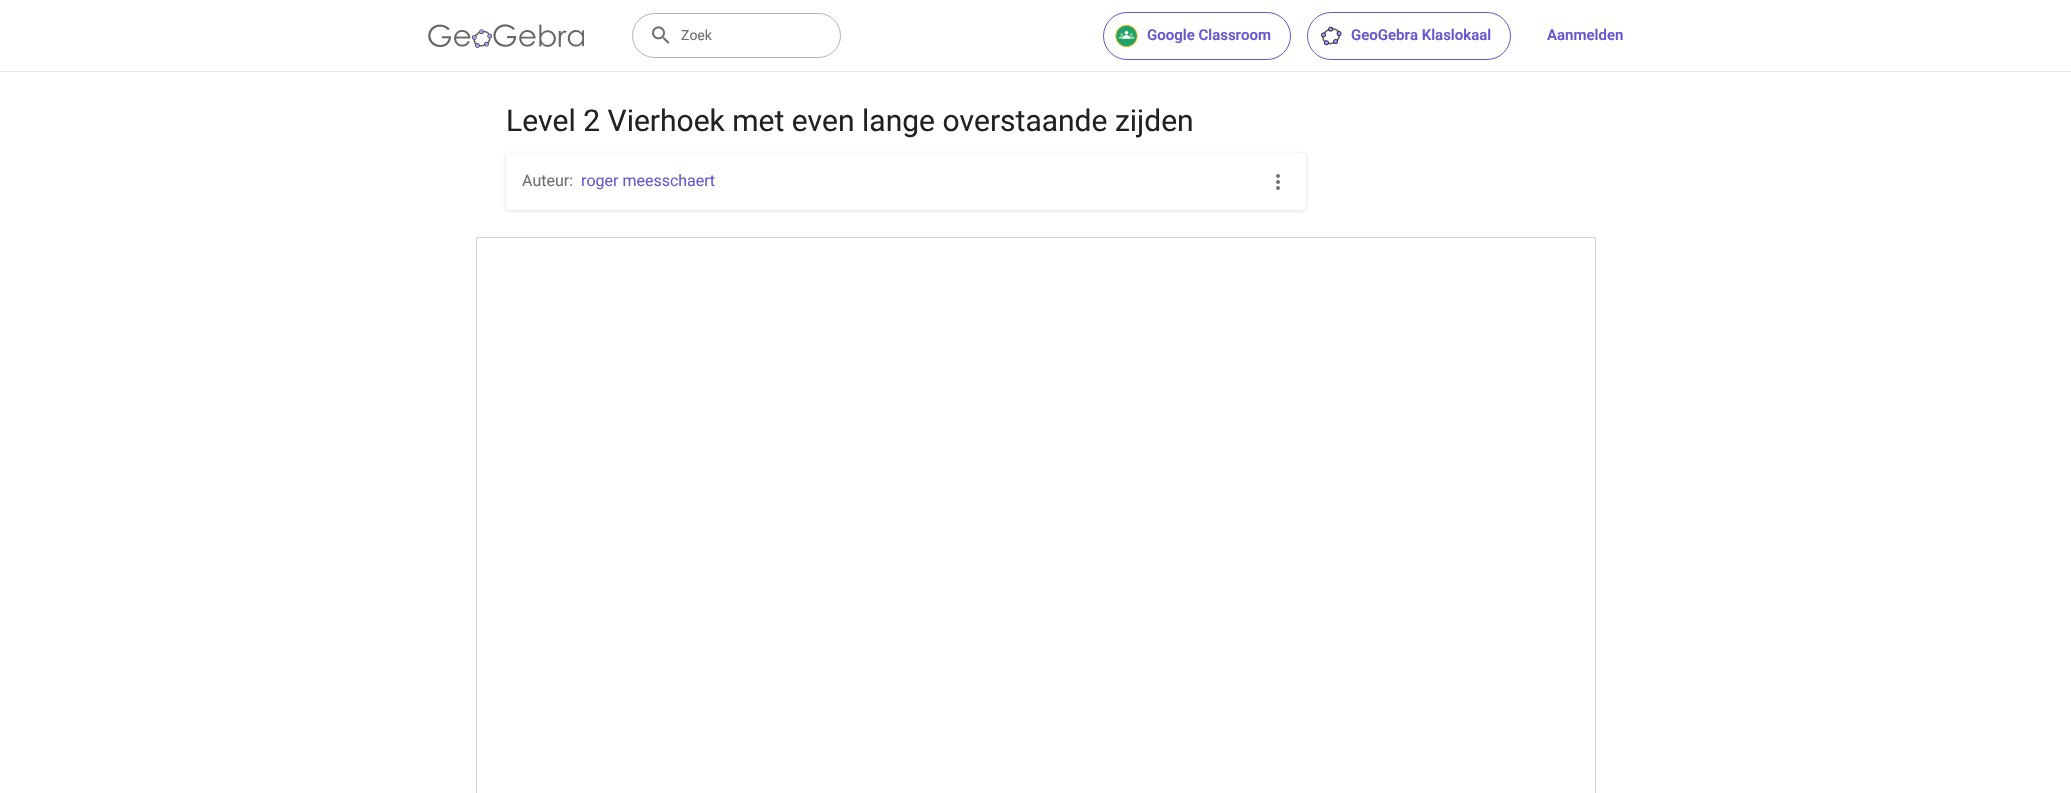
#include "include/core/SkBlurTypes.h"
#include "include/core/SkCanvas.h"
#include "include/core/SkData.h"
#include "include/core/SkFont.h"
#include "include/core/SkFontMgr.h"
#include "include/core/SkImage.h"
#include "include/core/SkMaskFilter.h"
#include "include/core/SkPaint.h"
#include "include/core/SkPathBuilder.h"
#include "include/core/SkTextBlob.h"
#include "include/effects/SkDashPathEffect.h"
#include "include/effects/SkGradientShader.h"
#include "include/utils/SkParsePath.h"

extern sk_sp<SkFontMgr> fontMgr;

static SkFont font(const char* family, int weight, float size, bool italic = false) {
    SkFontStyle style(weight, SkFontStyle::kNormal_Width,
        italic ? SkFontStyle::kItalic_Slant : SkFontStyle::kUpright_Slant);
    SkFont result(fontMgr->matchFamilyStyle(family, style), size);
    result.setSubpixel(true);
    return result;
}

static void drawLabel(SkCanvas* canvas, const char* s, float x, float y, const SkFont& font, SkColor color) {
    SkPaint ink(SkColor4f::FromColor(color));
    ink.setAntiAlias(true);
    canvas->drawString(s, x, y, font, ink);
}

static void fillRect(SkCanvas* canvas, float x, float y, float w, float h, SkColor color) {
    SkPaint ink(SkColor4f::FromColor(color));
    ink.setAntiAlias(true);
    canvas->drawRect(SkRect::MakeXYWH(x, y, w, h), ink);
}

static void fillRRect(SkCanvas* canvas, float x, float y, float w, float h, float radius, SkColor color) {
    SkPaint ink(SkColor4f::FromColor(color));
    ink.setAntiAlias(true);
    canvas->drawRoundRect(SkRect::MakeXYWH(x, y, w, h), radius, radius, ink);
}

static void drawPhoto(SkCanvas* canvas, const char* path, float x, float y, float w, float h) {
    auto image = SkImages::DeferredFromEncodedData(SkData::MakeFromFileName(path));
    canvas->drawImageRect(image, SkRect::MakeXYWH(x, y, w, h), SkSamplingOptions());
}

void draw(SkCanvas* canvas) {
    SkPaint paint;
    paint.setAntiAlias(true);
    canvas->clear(0xFFFFFFFF);
    fillRect(canvas, 0, 71, 2071, 1, 0xFFE6E6EB);
    drawPhoto(canvas, "assets/img1.png", 428, 24, 156, 24);
    paint.setStroke(true);
    paint.setStrokeWidth(1);
    paint.setColor(0xFFB4B3BA);
    canvas->drawRoundRect(SkRect::MakeXYWH(632.5f, 13.5f, 208, 44), 22, 22, paint);
    drawPhoto(canvas, "assets/img2.png", 652, 26, 18, 18);
    SkFont font1 = font("Roboto", 400, 14);
    drawLabel(canvas, "Zoek", 681, 40, font1, 0xFF6E6D73);
    paint.setColor(0xFF6557D2);
    canvas->drawRoundRect(SkRect::MakeXYWH(1103.5f, 12.5f, 187, 47), 23.5f, 23.5f, paint);
    drawPhoto(canvas, "assets/img3.png", 1115, 24, 23, 24);
    SkFont font2 = font("Roboto", 600, 15);
    drawLabel(canvas, "Google Classroom", 1147, 40, font2, 0xFF6557D2);
    canvas->drawRoundRect(SkRect::MakeXYWH(1307.5f, 12.5f, 203, 47), 23.5f, 23.5f, paint);
    drawPhoto(canvas, "assets/img4.png", 1321, 26, 21, 20);
    drawLabel(canvas, "GeoGebra Klaslokaal", 1351, 40, font2, 0xFF6557D2);
    drawLabel(canvas, "Aanmelden", 1547, 40, font2, 0xFF6557D2);
    SkFont font3 = font("Roboto", 400, 30);
    drawLabel(canvas, "Level 2 Vierhoek met even lange overstaande zijden", 506, 131, font3, 0xFF212121);
    paint.setStroke(false);
    paint.setColor(0x241C1C1F);
    paint.setMaskFilter(SkMaskFilter::MakeBlur(kNormal_SkBlurStyle, 2));
    canvas->drawRoundRect(SkRect::MakeXYWH(506, 154, 800, 57), 4, 4, paint);
    paint.setMaskFilter(nullptr);
    fillRRect(canvas, 506, 153, 800, 57, 4, 0xFFFFFFFF);
    SkFont font4 = font("Roboto", 400, 16);
    drawLabel(canvas, "Auteur:", 522, 186, font4, 0xFF6E6D73);
    drawLabel(canvas, "roger meesschaert", 581, 186, font4, 0xFF6557D2);
    drawPhoto(canvas, "assets/img5.png", 1276, 174, 4, 16);
    paint.setStroke(true);
    paint.setColor(0xFFD3D3D3);
    canvas->drawRect(SkRect::MakeXYWH(476.5f, 237.5f, 1119, 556), paint);
}
